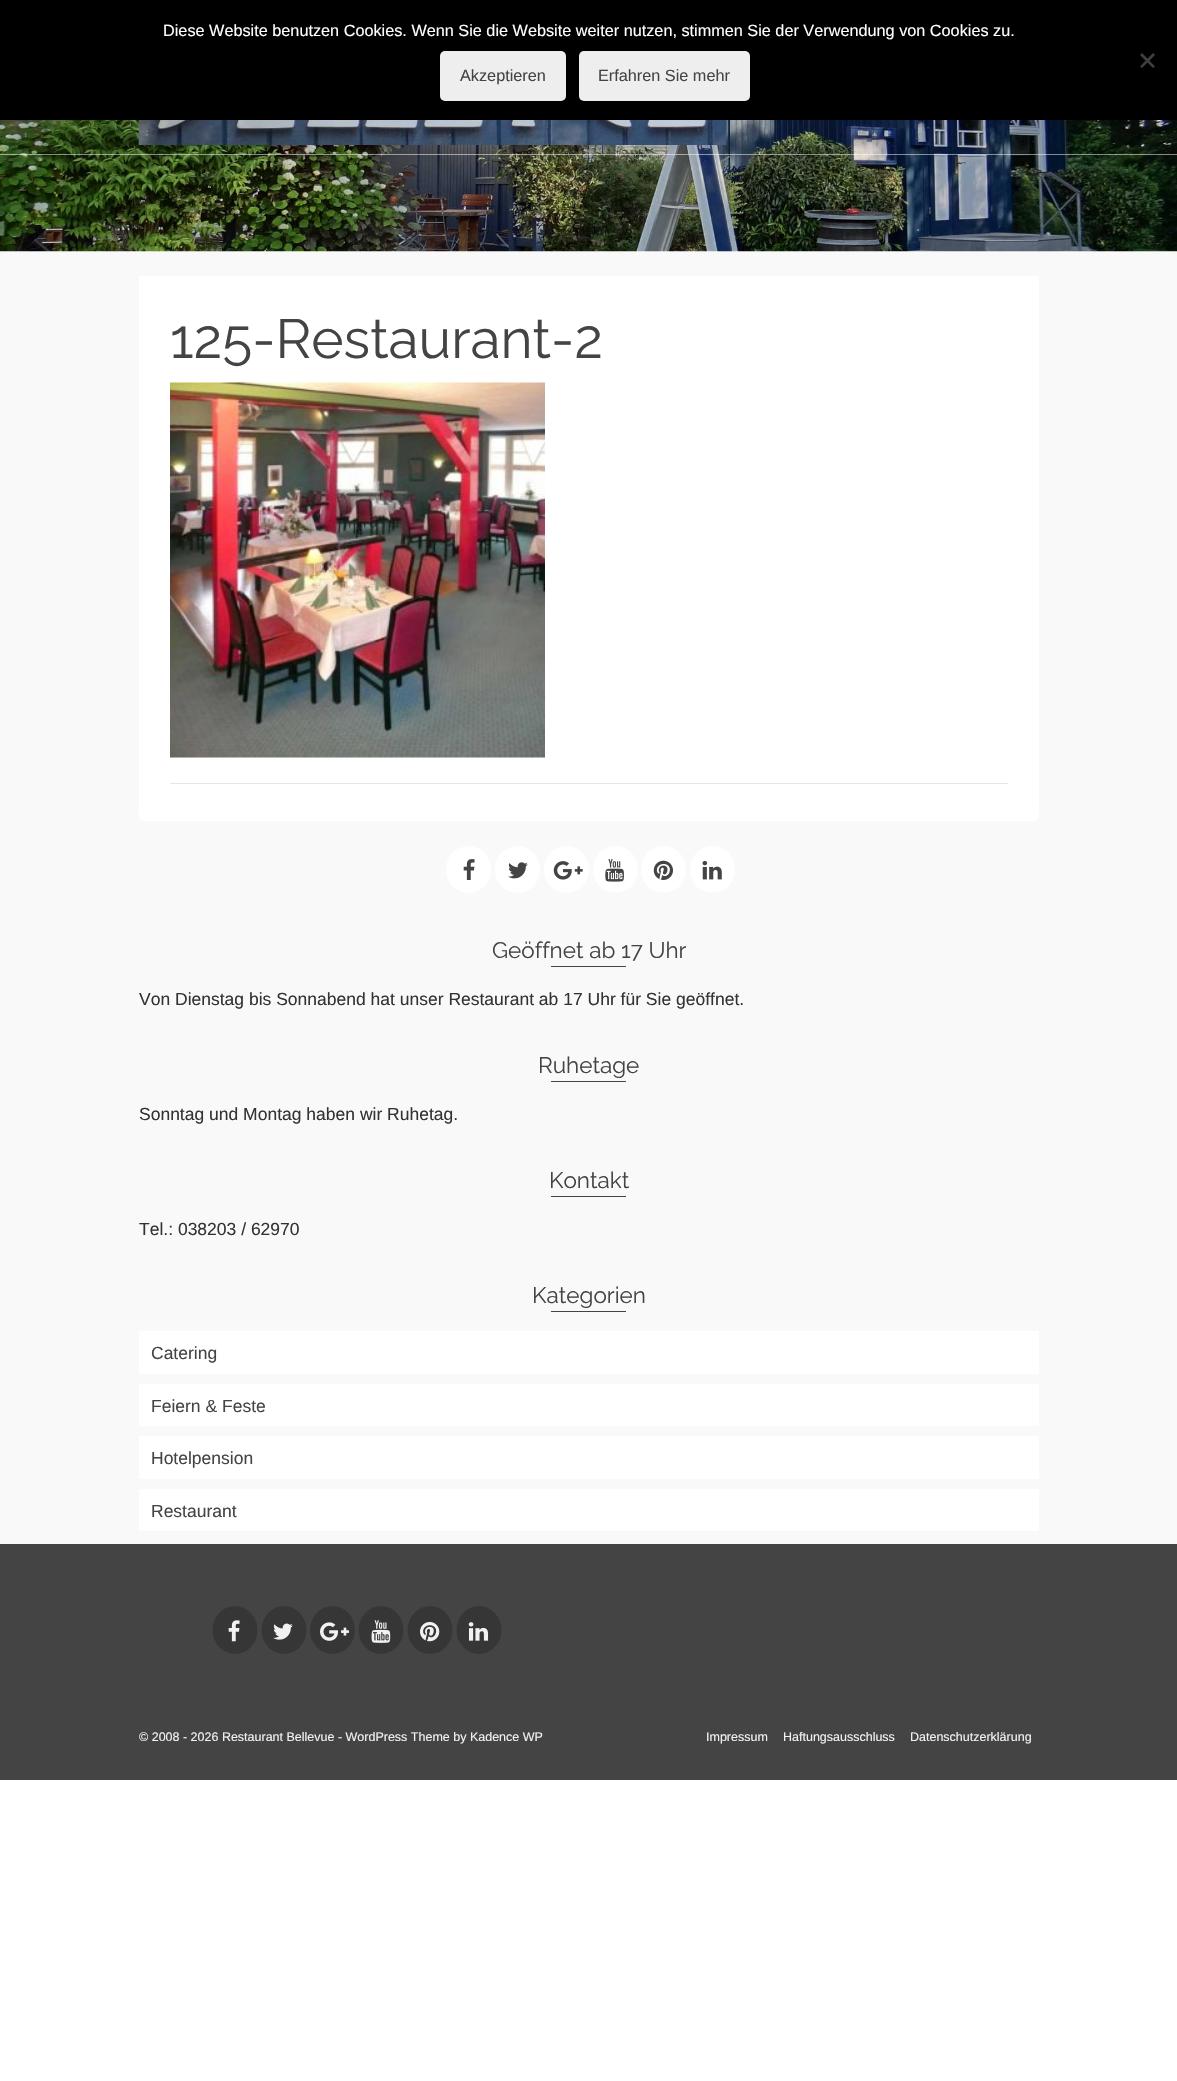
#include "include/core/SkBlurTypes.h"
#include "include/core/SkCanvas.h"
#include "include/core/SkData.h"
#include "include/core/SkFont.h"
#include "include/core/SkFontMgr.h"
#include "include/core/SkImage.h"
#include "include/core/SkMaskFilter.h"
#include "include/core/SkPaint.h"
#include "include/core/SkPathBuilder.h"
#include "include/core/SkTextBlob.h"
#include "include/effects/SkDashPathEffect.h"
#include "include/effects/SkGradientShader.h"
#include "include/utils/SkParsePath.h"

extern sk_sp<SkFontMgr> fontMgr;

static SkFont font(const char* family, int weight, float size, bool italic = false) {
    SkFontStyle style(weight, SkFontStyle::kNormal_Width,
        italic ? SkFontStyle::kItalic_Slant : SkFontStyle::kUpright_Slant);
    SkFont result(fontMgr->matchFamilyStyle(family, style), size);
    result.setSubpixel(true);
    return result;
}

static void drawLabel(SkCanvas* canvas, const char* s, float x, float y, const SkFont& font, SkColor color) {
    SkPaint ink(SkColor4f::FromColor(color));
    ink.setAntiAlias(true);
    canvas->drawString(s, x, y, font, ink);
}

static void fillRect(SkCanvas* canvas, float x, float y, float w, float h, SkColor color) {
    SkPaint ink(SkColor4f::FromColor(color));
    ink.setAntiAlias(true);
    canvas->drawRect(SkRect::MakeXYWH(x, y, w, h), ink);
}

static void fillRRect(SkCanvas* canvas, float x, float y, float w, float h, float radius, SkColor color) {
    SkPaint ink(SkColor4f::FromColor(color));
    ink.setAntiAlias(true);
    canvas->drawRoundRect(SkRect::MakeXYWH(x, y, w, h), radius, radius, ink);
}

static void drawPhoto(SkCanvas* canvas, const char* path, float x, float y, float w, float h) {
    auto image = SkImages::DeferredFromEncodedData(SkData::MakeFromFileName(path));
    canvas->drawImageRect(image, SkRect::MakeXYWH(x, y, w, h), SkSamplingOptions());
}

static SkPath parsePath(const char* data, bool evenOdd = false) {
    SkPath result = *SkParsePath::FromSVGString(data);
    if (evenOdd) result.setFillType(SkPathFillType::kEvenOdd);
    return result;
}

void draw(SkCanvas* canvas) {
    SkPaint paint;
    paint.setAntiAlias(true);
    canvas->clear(0xFFFFFFFF);
    fillRect(canvas, 0, 0, 1177, 120, 0xFF000000);
    SkFont font1 = font("Liberation Sans", 400, 16.25f);
    drawLabel(canvas, "Diese Website benutzen Cookies. Wenn Sie die Website weiter nutzen, stimmen Sie der Verwendung von Cookies zu.", 163, 36, font1, 0xFFFFFFFF);
    paint.setColor(0xFF404040);
    canvas->drawPath(parsePath("M1153 53L1155 55L1142 68L1140 66.5Z"), paint);
    canvas->drawPath(parsePath("M1140 55L1142 53L1155 66.5L1153 68Z"), paint);
    fillRRect(canvas, 440, 51, 126, 50, 5, 0xFFEEEEEE);
    drawLabel(canvas, "Akzeptieren", 460, 81, font1, 0xFF444444);
    fillRRect(canvas, 579, 51, 171, 50, 5, 0xFFEEEEEE);
    drawLabel(canvas, "Erfahren Sie mehr", 598, 81, font1, 0xFF444444);
    fillRect(canvas, 0, 251, 1177, 1293, 0xFFF9F9F9);
    drawPhoto(canvas, "assets/img2.png", 0, 120, 1177, 132);
    fillRect(canvas, 0, 154, 1177, 1, 0x80FFFFFF);
    drawPhoto(canvas, "assets/img1.png", 138, 120, 589, 25);
    paint.setColor(0xFFFFFFFF);
    canvas->drawPath(parsePath("M139 276H1039V815C1039 818.5 1036.5 821 1033 821H145C141.5 821 139 818.5 139 815Z"), paint);
    SkFont font2 = font("Raleway", 400, 55);
    drawLabel(canvas, "125-Restaurant-2", 170, 358, font2, 0xFF444444);
    drawPhoto(canvas, "assets/img3.png", 170, 382, 375, 376);
    fillRect(canvas, 170, 783, 838, 1, 0xFFE6E6E6);
    fillRRect(canvas, 446, 846, 45, 47, 22.5f, 0xFFFFFFFF);
    drawPhoto(canvas, "assets/img4.png", 463, 859, 12, 21);
    fillRRect(canvas, 495, 846, 45, 47, 22.5f, 0xFFFFFFFF);
    drawPhoto(canvas, "assets/img5.png", 508, 862, 20, 17);
    fillRRect(canvas, 544, 846, 45, 47, 22.5f, 0xFFFFFFFF);
    drawPhoto(canvas, "assets/img6.png", 553, 861, 30, 19);
    fillRRect(canvas, 593, 846, 45, 47, 22.5f, 0xFFFFFFFF);
    drawPhoto(canvas, "assets/img7.png", 605, 859, 19, 23);
    fillRRect(canvas, 641, 846, 45, 47, 22.5f, 0xFFFFFFFF);
    drawPhoto(canvas, "assets/img8.png", 653, 860, 20, 20);
    fillRRect(canvas, 690, 846, 45, 47, 22.5f, 0xFFFFFFFF);
    drawPhoto(canvas, "assets/img9.png", 702, 861, 20, 19);
    SkFont font3 = font("Raleway", 400, 22.5f);
    drawLabel(canvas, "Geöffnet ab 17 Uhr", 492, 958, font3, 0xFF444444);
    fillRect(canvas, 551, 966, 75, 1, 0xFF444444);
    SkFont font4 = font("Liberation Sans", 400, 17.5f);
    drawLabel(canvas, "Von Dienstag bis Sonnabend hat unser Restaurant ab 17 Uhr für Sie geöffnet.", 139, 1005, font4, 0xFF333333);
    drawLabel(canvas, "Ruhetage", 538, 1073, font3, 0xFF444444);
    fillRect(canvas, 551, 1081, 75, 1, 0xFF444444);
    drawLabel(canvas, "Sonntag und Montag haben wir Ruhetag.", 139, 1120, font4, 0xFF333333);
    drawLabel(canvas, "Kontakt", 549, 1188, font3, 0xFF444444);
    fillRect(canvas, 551, 1196, 75, 1, 0xFF444444);
    drawLabel(canvas, "Tel.: 038203 / 62970", 139, 1235, font4, 0xFF333333);
    drawLabel(canvas, "Kategorien", 532, 1303, font3, 0xFF444444);
    fillRect(canvas, 551, 1311, 75, 1, 0xFF444444);
    fillRect(canvas, 139, 1331, 900, 43, 0xFFFFFFFF);
    drawLabel(canvas, "Catering", 151, 1359, font4, 0xFF444444);
    fillRect(canvas, 139, 1384, 900, 42, 0xFFFFFFFF);
    drawLabel(canvas, "Feiern & Feste", 151, 1412, font4, 0xFF444444);
    fillRect(canvas, 139, 1436, 900, 43, 0xFFFFFFFF);
    drawLabel(canvas, "Hotelpension", 151, 1464, font4, 0xFF444444);
    fillRect(canvas, 139, 1489, 900, 42, 0xFFFFFFFF);
    drawLabel(canvas, "Restaurant", 151, 1517, font4, 0xFF444444);
    fillRect(canvas, 0, 1544, 1177, 236, 0xFF444444);
    paint.setColor(0xFF363636);
    canvas->drawOval(SkRect::MakeXYWH(212.5f, 1606, 45, 48), paint);
    drawPhoto(canvas, "assets/img10.png", 228, 1620, 12, 22);
    canvas->drawOval(SkRect::MakeXYWH(261.5f, 1606, 45, 48), paint);
    drawPhoto(canvas, "assets/img11.png", 273, 1623, 20, 17);
    canvas->drawOval(SkRect::MakeXYWH(310, 1606, 45, 48), paint);
    drawPhoto(canvas, "assets/img12.png", 320, 1622, 29, 19);
    canvas->drawOval(SkRect::MakeXYWH(358.5f, 1606, 45, 48), paint);
    drawPhoto(canvas, "assets/img13.png", 371, 1620, 20, 23);
    canvas->drawOval(SkRect::MakeXYWH(407.5f, 1606, 45, 48), paint);
    drawPhoto(canvas, "assets/img14.png", 420, 1622, 20, 20);
    canvas->drawOval(SkRect::MakeXYWH(456.5f, 1606, 45, 48), paint);
    drawPhoto(canvas, "assets/img15.png", 468, 1622, 21, 19);
    SkFont font5 = font("Liberation Sans", 400, 12.5f);
    drawLabel(canvas, "© 2008 - 2026 Restaurant Bellevue - WordPress Theme by Kadence WP", 139, 1741, font5, 0xFFF2F2F2);
    drawLabel(canvas, "Impressum", 706, 1741, font5, 0xFFF2F2F2);
    drawLabel(canvas, "Haftungsausschluss", 783, 1741, font5, 0xFFF2F2F2);
    drawLabel(canvas, "Datenschutzerklärung", 910, 1741, font5, 0xFFF2F2F2);
}
